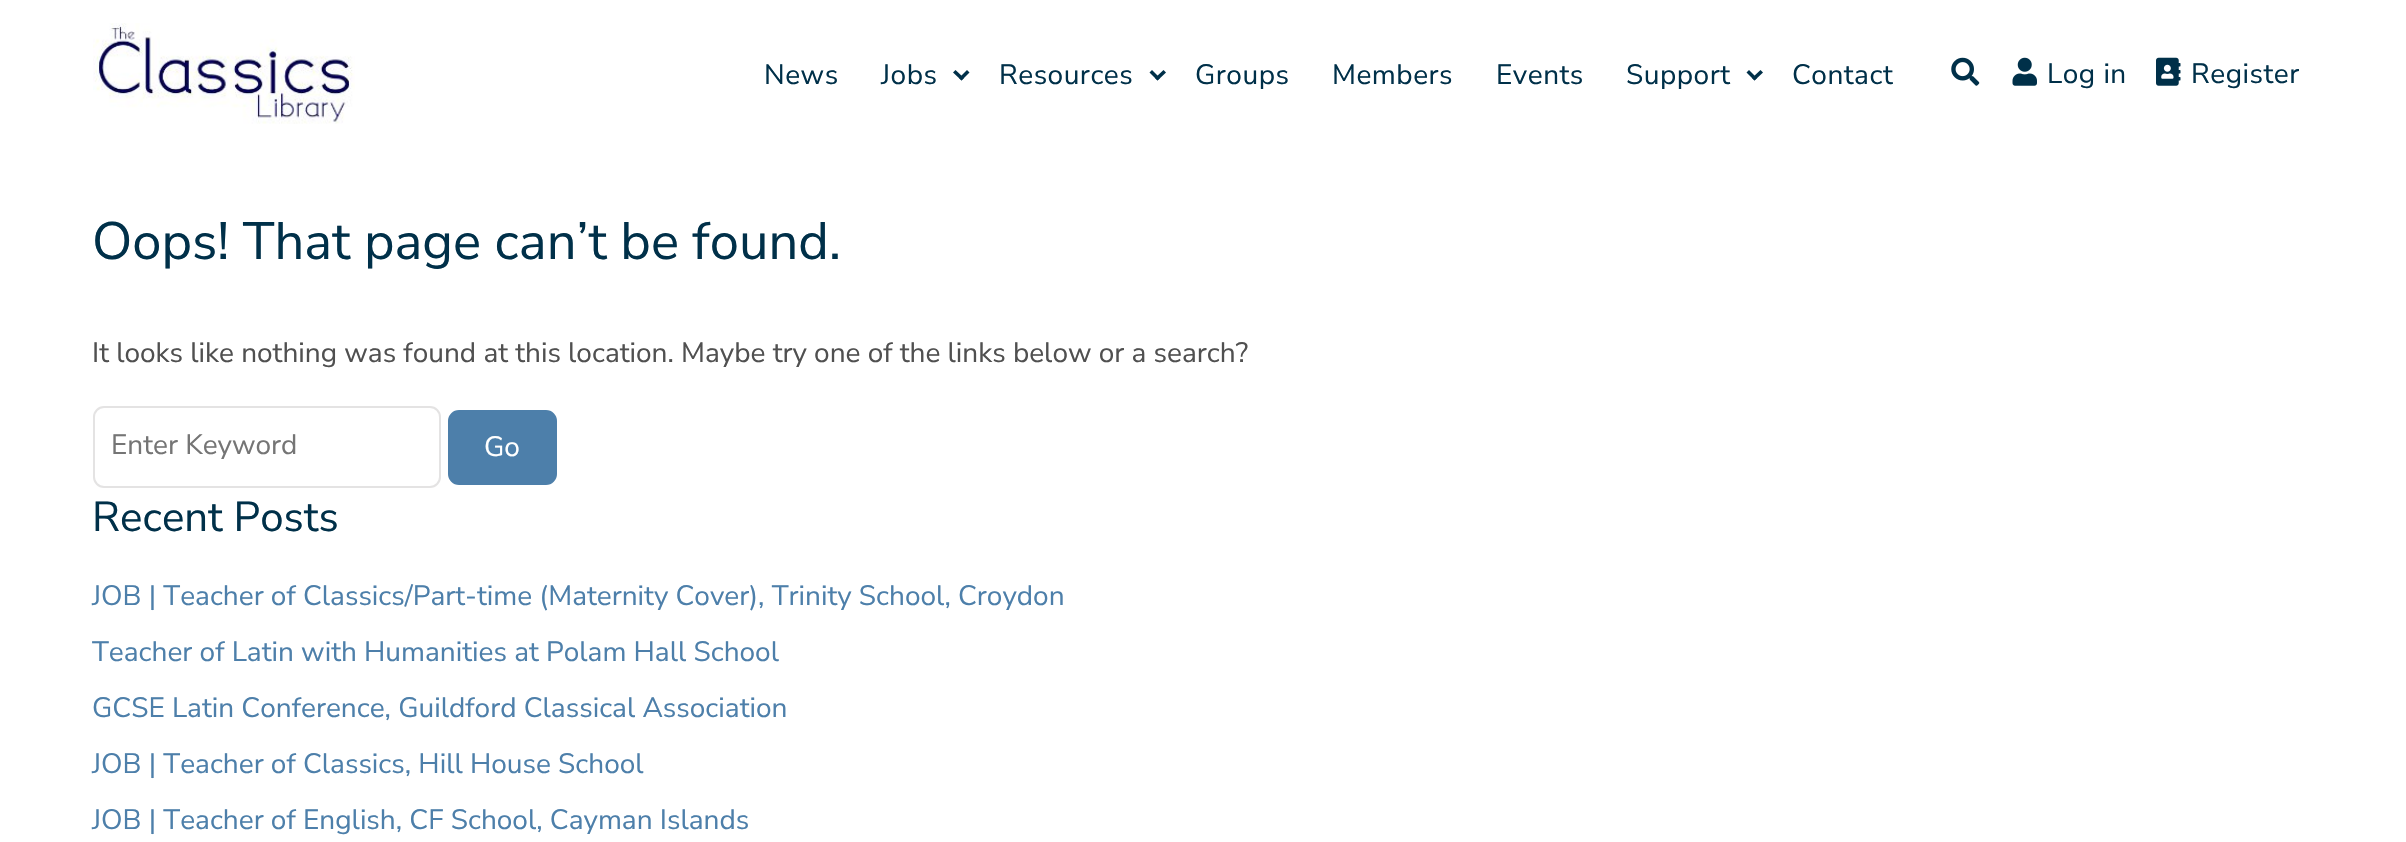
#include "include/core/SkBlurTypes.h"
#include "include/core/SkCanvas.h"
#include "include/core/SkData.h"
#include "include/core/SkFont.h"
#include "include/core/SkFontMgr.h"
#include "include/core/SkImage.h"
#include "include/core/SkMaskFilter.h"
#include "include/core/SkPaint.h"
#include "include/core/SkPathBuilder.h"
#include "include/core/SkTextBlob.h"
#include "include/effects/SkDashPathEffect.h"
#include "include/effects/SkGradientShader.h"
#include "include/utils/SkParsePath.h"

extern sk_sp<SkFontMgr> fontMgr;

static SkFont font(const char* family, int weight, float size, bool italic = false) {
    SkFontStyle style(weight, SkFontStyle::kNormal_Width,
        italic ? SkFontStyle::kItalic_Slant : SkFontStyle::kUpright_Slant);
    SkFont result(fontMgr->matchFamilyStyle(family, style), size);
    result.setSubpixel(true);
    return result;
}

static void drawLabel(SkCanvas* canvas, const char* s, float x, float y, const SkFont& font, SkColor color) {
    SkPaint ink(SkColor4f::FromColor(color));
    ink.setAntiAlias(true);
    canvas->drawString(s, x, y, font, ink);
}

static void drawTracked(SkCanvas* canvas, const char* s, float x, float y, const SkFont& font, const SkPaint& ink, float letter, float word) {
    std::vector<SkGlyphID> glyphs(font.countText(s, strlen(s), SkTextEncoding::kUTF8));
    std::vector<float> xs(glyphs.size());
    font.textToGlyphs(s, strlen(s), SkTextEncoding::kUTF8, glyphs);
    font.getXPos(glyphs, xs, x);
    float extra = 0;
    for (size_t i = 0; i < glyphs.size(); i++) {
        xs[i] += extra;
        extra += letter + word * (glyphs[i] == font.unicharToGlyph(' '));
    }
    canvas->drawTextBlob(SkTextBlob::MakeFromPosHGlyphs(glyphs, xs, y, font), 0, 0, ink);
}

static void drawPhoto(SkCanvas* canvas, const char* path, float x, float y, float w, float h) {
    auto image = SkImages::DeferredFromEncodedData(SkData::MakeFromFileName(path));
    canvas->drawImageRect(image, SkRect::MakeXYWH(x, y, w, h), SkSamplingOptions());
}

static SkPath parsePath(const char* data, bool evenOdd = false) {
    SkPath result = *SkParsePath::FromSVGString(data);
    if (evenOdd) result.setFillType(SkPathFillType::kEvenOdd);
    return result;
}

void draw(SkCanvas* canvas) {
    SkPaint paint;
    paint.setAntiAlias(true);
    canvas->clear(0xFFFFFFFF);
    drawPhoto(canvas, "assets/img1.png", 93, 23, 262, 101);
    SkFont font1 = font("Nunito Sans", 400, 28);
    paint.setColor(0xFF003049);
    drawTracked(canvas, "News", 764, 84, font1, paint, 0.5f, 0);
    drawTracked(canvas, "Jobs", 881, 84, font1, paint, 0.5f, 0);
    canvas->drawPath(parsePath("M967 70L969.5 72.5L961.5 80.5L959 78Z"), paint);
    canvas->drawPath(parsePath("M955.5 70L964 78L961.5 80.5L953 72.5Z"), paint);
    drawTracked(canvas, "Resources", 999, 84, font1, paint, 0.5f, 0);
    canvas->drawPath(parsePath("M1163.5 70L1166 72.5L1157.5 80.5L1155 78Z"), paint);
    canvas->drawPath(parsePath("M1152 70L1160 78L1157.5 80.5L1149.5 72.5Z"), paint);
    drawTracked(canvas, "Groups", 1195, 84, font1, paint, 0.5f, 0);
    drawTracked(canvas, "Members", 1332, 84, font1, paint, 0.5f, 0);
    drawTracked(canvas, "Events", 1496, 84, font1, paint, 0.5f, 0);
    drawTracked(canvas, "Support", 1626, 84, font1, paint, 0.5f, 0);
    canvas->drawPath(parsePath("M1760.5 70L1763 72.5L1754.5 80.5L1752 78Z"), paint);
    canvas->drawPath(parsePath("M1749 70L1757 78L1754.5 80.5L1746.5 72.5Z"), paint);
    drawTracked(canvas, "Contact", 1792, 84, font1, paint, 0.5f, 0);
    drawPhoto(canvas, "assets/img2.png", 1951, 57, 29, 29);
    drawPhoto(canvas, "assets/img3.png", 2012, 57, 25, 29);
    drawTracked(canvas, "Log in", 2047, 83, font1, paint, 0.5f, 0);
    drawPhoto(canvas, "assets/img4.png", 2156, 57, 25, 29);
    drawTracked(canvas, "Register", 2191, 83, font1, paint, 0.5f, 0);
    SkFont font2 = font("Nunito Sans", 400, 52.5f);
    drawLabel(canvas, "Oops! That page can’t be found.", 92, 259, font2, 0xFF003049);
    drawLabel(canvas, "It looks like nothing was found at this location. Maybe try one of the links below or a search?", 92, 362, font1, 0xFF505050);
    paint.setStroke(true);
    paint.setStrokeWidth(2);
    paint.setColor(0xFFE4E3E3);
    canvas->drawRoundRect(SkRect::MakeXYWH(94, 407, 346, 80), 10, 10, paint);
    drawLabel(canvas, "Enter Keyword", 111, 454, font1, 0xFF757575);
    paint.setStroke(false);
    paint.setColor(0xFF4D7FAA);
    canvas->drawRoundRect(SkRect::MakeXYWH(449, 411, 107, 73), 10, 10, paint);
    paint.setStroke(true);
    canvas->drawRoundRect(SkRect::MakeXYWH(449, 411, 107, 73), 10, 10, paint);
    drawLabel(canvas, "Go", 484, 456, font1, 0xFFFFFFFF);
    SkFont font3 = font("Nunito Sans", 400, 42);
    drawLabel(canvas, "Recent Posts", 92, 531, font3, 0xFF003049);
    drawLabel(canvas, "JOB | Teacher of Classics/Part-time (Maternity Cover), Trinity School, Croydon", 92, 605, font1, 0xFF4D7FAA);
    drawLabel(canvas, "Teacher of Latin with Humanities at Polam Hall School", 92, 661, font1, 0xFF4D7FAA);
    drawLabel(canvas, "GCSE Latin Conference, Guildford Classical Association", 92, 717, font1, 0xFF4D7FAA);
    drawLabel(canvas, "JOB | Teacher of Classics, Hill House School", 92, 773, font1, 0xFF4D7FAA);
    drawLabel(canvas, "JOB | Teacher of English, CF School, Cayman Islands", 92, 829, font1, 0xFF4D7FAA);
}
